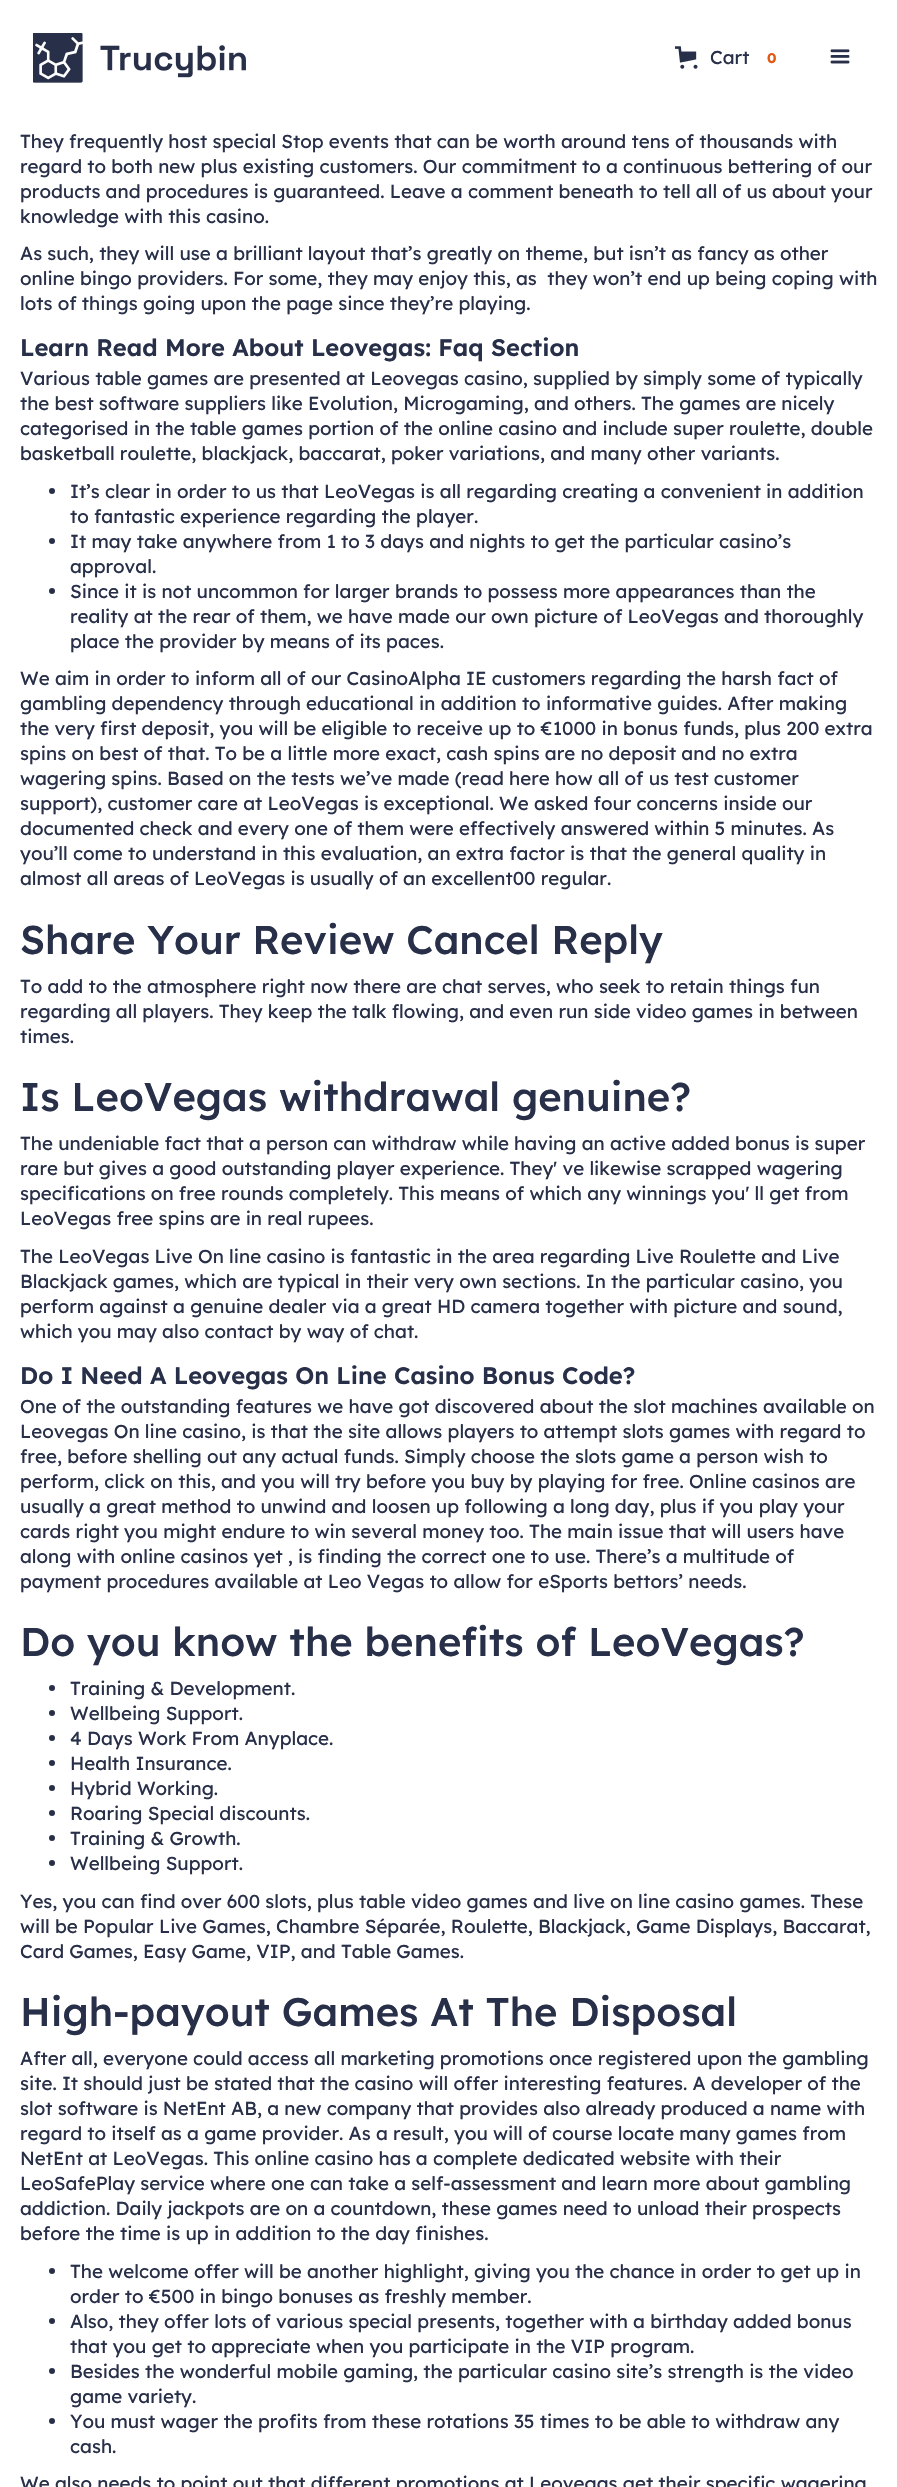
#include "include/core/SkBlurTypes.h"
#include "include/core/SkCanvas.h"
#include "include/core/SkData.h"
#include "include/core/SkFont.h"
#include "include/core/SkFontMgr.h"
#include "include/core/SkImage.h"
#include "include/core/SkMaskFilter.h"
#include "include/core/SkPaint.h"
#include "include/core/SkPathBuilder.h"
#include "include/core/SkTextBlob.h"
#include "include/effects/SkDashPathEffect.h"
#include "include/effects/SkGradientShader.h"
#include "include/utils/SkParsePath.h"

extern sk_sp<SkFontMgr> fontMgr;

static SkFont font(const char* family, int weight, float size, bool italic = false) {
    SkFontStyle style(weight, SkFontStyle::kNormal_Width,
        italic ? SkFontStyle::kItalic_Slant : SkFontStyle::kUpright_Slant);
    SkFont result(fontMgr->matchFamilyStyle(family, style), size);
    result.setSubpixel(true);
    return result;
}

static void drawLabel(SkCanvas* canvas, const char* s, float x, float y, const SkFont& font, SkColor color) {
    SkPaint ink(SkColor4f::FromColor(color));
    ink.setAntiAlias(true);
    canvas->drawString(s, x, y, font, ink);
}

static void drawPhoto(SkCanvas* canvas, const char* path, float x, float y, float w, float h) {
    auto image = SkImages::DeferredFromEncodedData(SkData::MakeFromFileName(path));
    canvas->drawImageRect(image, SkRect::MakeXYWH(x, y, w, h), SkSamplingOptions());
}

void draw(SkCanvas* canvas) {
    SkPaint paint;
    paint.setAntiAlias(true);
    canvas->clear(0xFFFFFFFF);
    drawPhoto(canvas, "assets/img1.png", 33, 33, 213, 50);
    drawPhoto(canvas, "assets/img2.png", 675, 46, 23, 23);
    SkFont font1 = font("Lexend", 400, 18.75f);
    drawLabel(canvas, "Cart", 710, 64, font1, 0xFF282F48);
    SkFont font2 = font("Lexend", 700, 14);
    drawLabel(canvas, "0", 767, 63, font2, 0xFFE25711);
    drawPhoto(canvas, "assets/img3.png", 830, 49, 20, 15);
    drawLabel(canvas, "They frequently host special Stop events that can be worth around tens of thousands with", 20, 148, font1, 0xFF282F48);
    drawLabel(canvas, "regard to both new plus existing customers. Our commitment to a continuous bettering of our", 20, 173, font1, 0xFF282F48);
    drawLabel(canvas, "products and procedures is guaranteed. Leave a comment beneath to tell all of us about your", 20, 198, font1, 0xFF282F48);
    drawLabel(canvas, "knowledge with this casino.", 20, 223, font1, 0xFF282F48);
    drawLabel(canvas, "As such, they will use a brilliant layout that’s greatly on theme, but isn’t as fancy as other", 20, 260, font1, 0xFF282F48);
    drawLabel(canvas, "online bingo providers. For some, they may enjoy this, as  they won’t end up being coping with", 20, 285, font1, 0xFF282F48);
    drawLabel(canvas, "lots of things going upon the page since they’re playing.", 20, 310, font1, 0xFF282F48);
    SkFont font3 = font("Lexend", 600, 23.75f);
    drawLabel(canvas, "Learn Read More About Leovegas: Faq Section", 20, 356, font3, 0xFF282F48);
    drawLabel(canvas, "Various table games are presented at Leovegas casino, supplied by simply some of typically", 20, 385, font1, 0xFF282F48);
    drawLabel(canvas, "the best software suppliers like Evolution, Microgaming, and others. The games are nicely", 20, 410, font1, 0xFF282F48);
    drawLabel(canvas, "categorised in the table games portion of the online casino and include super roulette, double", 20, 435, font1, 0xFF282F48);
    drawLabel(canvas, "basketball roulette, blackjack, baccarat, poker variations, and many other variants.", 20, 460, font1, 0xFF282F48);
    paint.setColor(0xFF282F48);
    canvas->drawCircle(52, 491, 3, paint);
    drawLabel(canvas, "It’s clear in order to us that LeoVegas is all regarding creating a convenient in addition", 70, 498, font1, 0xFF282F48);
    drawLabel(canvas, "to fantastic experience regarding the player.", 70, 523, font1, 0xFF282F48);
    canvas->drawCircle(52, 541, 3, paint);
    drawLabel(canvas, "It may take anywhere from 1 to 3 days and nights to get the particular casino’s", 70, 548, font1, 0xFF282F48);
    drawLabel(canvas, "approval.", 70, 573, font1, 0xFF282F48);
    canvas->drawCircle(52, 591, 3, paint);
    drawLabel(canvas, "Since it is not uncommon for larger brands to possess more appearances than the", 70, 598, font1, 0xFF282F48);
    drawLabel(canvas, "reality at the rear of them, we have made our own picture of LeoVegas and thoroughly", 70, 623, font1, 0xFF282F48);
    drawLabel(canvas, "place the provider by means of its paces.", 70, 648, font1, 0xFF282F48);
    drawLabel(canvas, "We aim in order to inform all of our CasinoAlpha IE customers regarding the harsh fact of", 20, 685, font1, 0xFF282F48);
    drawLabel(canvas, "gambling dependency through educational in addition to informative guides. After making", 20, 710, font1, 0xFF282F48);
    drawLabel(canvas, "the very first deposit, you will be eligible to receive up to €1000 in bonus funds, plus 200 extra", 20, 735, font1, 0xFF282F48);
    drawLabel(canvas, "spins on best of that. To be a little more exact, cash spins are no deposit and no extra", 20, 760, font1, 0xFF282F48);
    drawLabel(canvas, "wagering spins. Based on the tests we’ve made (read here how all of us test customer", 20, 785, font1, 0xFF282F48);
    drawLabel(canvas, "support), customer care at LeoVegas is exceptional. We asked four concerns inside our", 20, 810, font1, 0xFF282F48);
    drawLabel(canvas, "documented check and every one of them were effectively answered within 5 minutes. As", 20, 835, font1, 0xFF282F48);
    drawLabel(canvas, "you’ll come to understand in this evaluation, an extra factor is that the general quality in", 20, 860, font1, 0xFF282F48);
    drawLabel(canvas, "almost all areas of LeoVegas is usually of an excellent00 regular.", 20, 885, font1, 0xFF282F48);
    SkFont font4 = font("Lexend", 500, 40);
    drawLabel(canvas, "Share Your Review Cancel Reply", 20, 954, font4, 0xFF282F48);
    drawLabel(canvas, "To add to the atmosphere right now there are chat serves, who seek to retain things fun", 20, 993, font1, 0xFF282F48);
    drawLabel(canvas, "regarding all players. They keep the talk flowing, and even run side video games in between", 20, 1018, font1, 0xFF282F48);
    drawLabel(canvas, "times.", 20, 1043, font1, 0xFF282F48);
    drawLabel(canvas, "Is LeoVegas withdrawal genuine?", 20, 1111, font4, 0xFF282F48);
    drawLabel(canvas, "The undeniable fact that a person can withdraw while having an active added bonus is super", 20, 1150, font1, 0xFF282F48);
    drawLabel(canvas, "rare but gives a good outstanding player experience. They' ve likewise scrapped wagering", 20, 1175, font1, 0xFF282F48);
    drawLabel(canvas, "specifications on free rounds completely. This means of which any winnings you' ll get from", 20, 1200, font1, 0xFF282F48);
    drawLabel(canvas, "LeoVegas free spins are in real rupees.", 20, 1225, font1, 0xFF282F48);
    drawLabel(canvas, "The LeoVegas Live On line casino is fantastic in the area regarding Live Roulette and Live", 20, 1263, font1, 0xFF282F48);
    drawLabel(canvas, "Blackjack games, which are typical in their very own sections. In the particular casino, you", 20, 1288, font1, 0xFF282F48);
    drawLabel(canvas, "perform against a genuine dealer via a great HD camera together with picture and sound,", 20, 1313, font1, 0xFF282F48);
    drawLabel(canvas, "which you may also contact by way of chat.", 20, 1338, font1, 0xFF282F48);
    drawLabel(canvas, "Do I Need A Leovegas On Line Casino Bonus Code?", 20, 1384, font3, 0xFF282F48);
    drawLabel(canvas, "One of the outstanding features we have got discovered about the slot machines available on", 20, 1413, font1, 0xFF282F48);
    drawLabel(canvas, "Leovegas On line casino, is that the site allows players to attempt slots games with regard to", 20, 1438, font1, 0xFF282F48);
    drawLabel(canvas, "free, before shelling out any actual funds. Simply choose the slots game a person wish to", 20, 1463, font1, 0xFF282F48);
    drawLabel(canvas, "perform, click on this, and you will try before you buy by playing for free. Online casinos are", 20, 1488, font1, 0xFF282F48);
    drawLabel(canvas, "usually a great method to unwind and loosen up following a long day, plus if you play your", 20, 1513, font1, 0xFF282F48);
    drawLabel(canvas, "cards right you might endure to win several money too. The main issue that will users have", 20, 1538, font1, 0xFF282F48);
    drawLabel(canvas, "along with online casinos yet , is finding the correct one to use. There’s a multitude of", 20, 1563, font1, 0xFF282F48);
    drawLabel(canvas, "payment procedures available at Leo Vegas to allow for eSports bettors’ needs.", 20, 1588, font1, 0xFF282F48);
    drawLabel(canvas, "Do you know the benefits of LeoVegas?", 20, 1656, font4, 0xFF282F48);
    canvas->drawCircle(52, 1688, 3, paint);
    drawLabel(canvas, "Training & Development.", 70, 1695, font1, 0xFF282F48);
    canvas->drawCircle(52, 1713, 3, paint);
    drawLabel(canvas, "Wellbeing Support.", 70, 1720, font1, 0xFF282F48);
    canvas->drawCircle(52, 1738, 3, paint);
    drawLabel(canvas, "4 Days Work From Anyplace.", 70, 1745, font1, 0xFF282F48);
    canvas->drawCircle(52, 1763, 3, paint);
    drawLabel(canvas, "Health Insurance.", 70, 1770, font1, 0xFF282F48);
    canvas->drawCircle(52, 1788, 3, paint);
    drawLabel(canvas, "Hybrid Working.", 70, 1795, font1, 0xFF282F48);
    canvas->drawCircle(52, 1813, 3, paint);
    drawLabel(canvas, "Roaring Special discounts.", 70, 1820, font1, 0xFF282F48);
    canvas->drawCircle(52, 1838, 3, paint);
    drawLabel(canvas, "Training & Growth.", 70, 1845, font1, 0xFF282F48);
    canvas->drawCircle(52, 1863, 3, paint);
    drawLabel(canvas, "Wellbeing Support.", 70, 1870, font1, 0xFF282F48);
    drawLabel(canvas, "Yes, you can find over 600 slots, plus table video games and live on line casino games. These", 20, 1908, font1, 0xFF282F48);
    drawLabel(canvas, "will be Popular Live Games, Chambre Séparée, Roulette, Blackjack, Game Displays, Baccarat,", 20, 1933, font1, 0xFF282F48);
    drawLabel(canvas, "Card Games, Easy Game, VIP, and Table Games.", 20, 1958, font1, 0xFF282F48);
    drawLabel(canvas, "High-payout Games At The Disposal", 20, 2026, font4, 0xFF282F48);
    drawLabel(canvas, "After all, everyone could access all marketing promotions once registered upon the gambling", 20, 2065, font1, 0xFF282F48);
    drawLabel(canvas, "site. It should just be stated that the casino will offer interesting features. A developer of the", 20, 2090, font1, 0xFF282F48);
    drawLabel(canvas, "slot software is NetEnt AB, a new company that provides also already produced a name with", 20, 2115, font1, 0xFF282F48);
    drawLabel(canvas, "regard to itself as a game provider. As a result, you will of course locate many games from", 20, 2140, font1, 0xFF282F48);
    drawLabel(canvas, "NetEnt at LeoVegas. This online casino has a complete dedicated website with their", 20, 2165, font1, 0xFF282F48);
    drawLabel(canvas, "LeoSafePlay service where one can take a self-assessment and learn more about gambling", 20, 2190, font1, 0xFF282F48);
    drawLabel(canvas, "addiction. Daily jackpots are on a countdown, these games need to unload their prospects", 20, 2215, font1, 0xFF282F48);
    drawLabel(canvas, "before the time is up in addition to the day finishes.", 20, 2240, font1, 0xFF282F48);
    canvas->drawCircle(52, 2271, 3, paint);
    drawLabel(canvas, "The welcome offer will be another highlight, giving you the chance in order to get up in", 70, 2278, font1, 0xFF282F48);
    drawLabel(canvas, "order to €500 in bingo bonuses as freshly member.", 70, 2303, font1, 0xFF282F48);
    canvas->drawCircle(52, 2321, 3, paint);
    drawLabel(canvas, "Also, they offer lots of various special presents, together with a birthday added bonus", 70, 2328, font1, 0xFF282F48);
    drawLabel(canvas, "that you get to appreciate when you participate in the VIP program.", 70, 2353, font1, 0xFF282F48);
    canvas->drawCircle(52, 2371, 3, paint);
    drawLabel(canvas, "Besides the wonderful mobile gaming, the particular casino site’s strength is the video", 70, 2378, font1, 0xFF282F48);
    drawLabel(canvas, "game variety.", 70, 2403, font1, 0xFF282F48);
    canvas->drawCircle(52, 2421, 3, paint);
    drawLabel(canvas, "You must wager the profits from these rotations 35 times to be able to withdraw any", 70, 2428, font1, 0xFF282F48);
    drawLabel(canvas, "cash.", 70, 2453, font1, 0xFF282F48);
    drawLabel(canvas, "We also needs to point out that different promotions at Leovegas get their specific wagering", 20, 2490, font1, 0xFF282F48);
}
